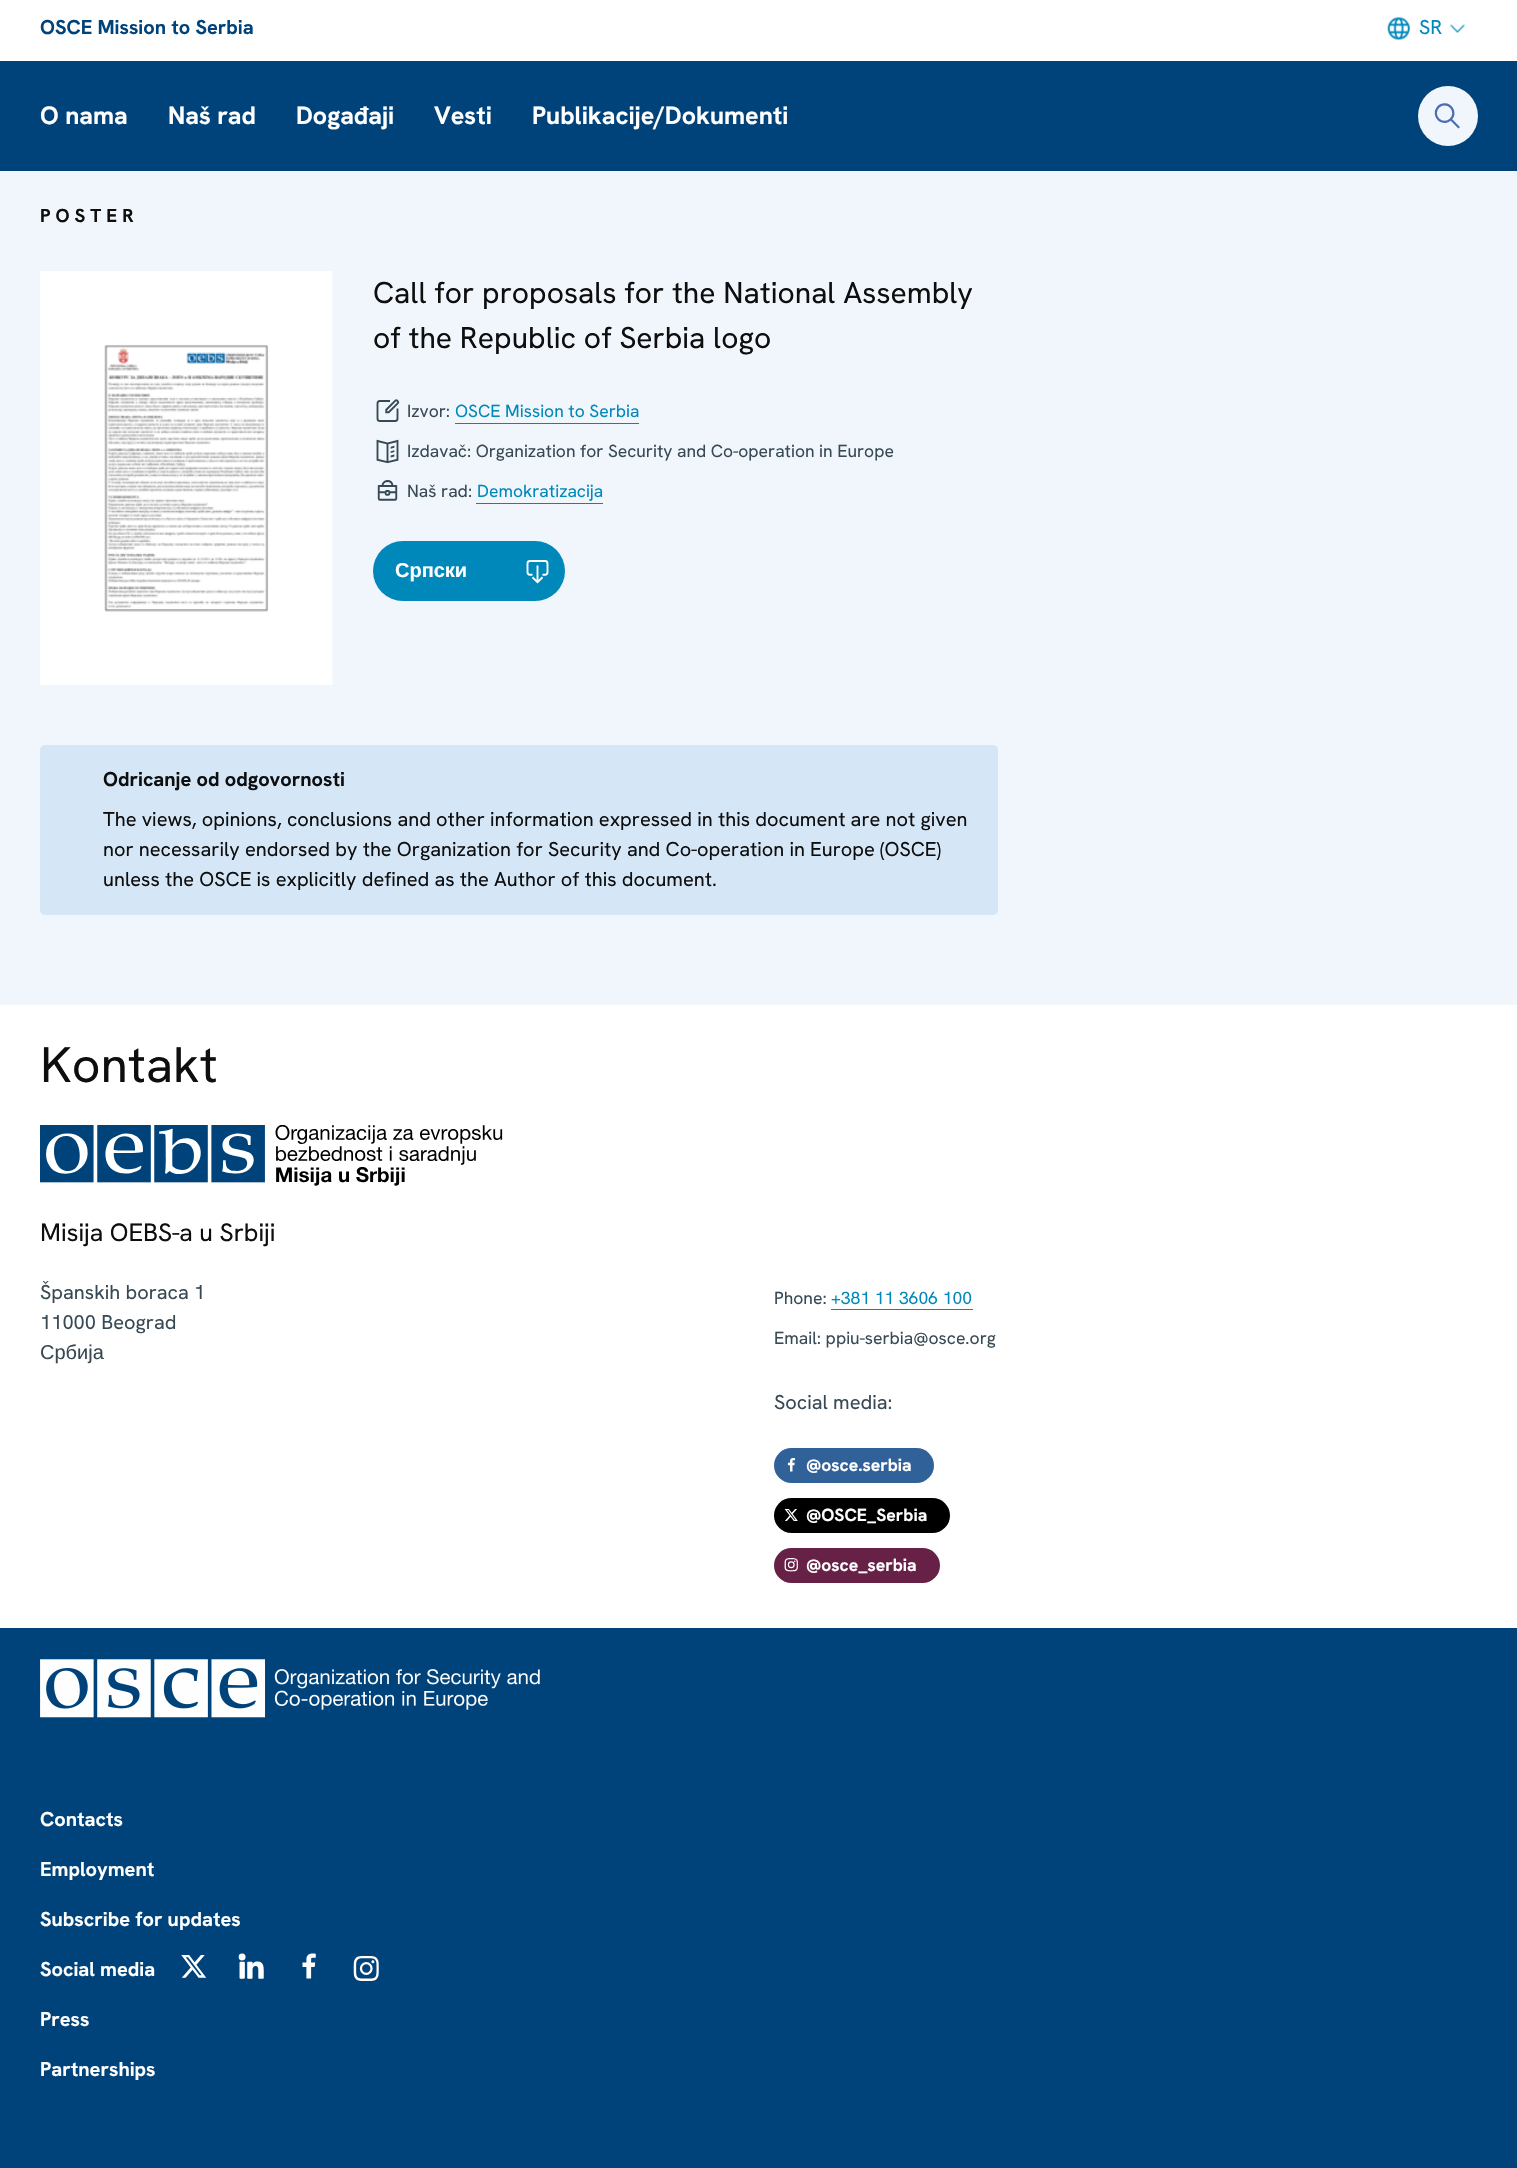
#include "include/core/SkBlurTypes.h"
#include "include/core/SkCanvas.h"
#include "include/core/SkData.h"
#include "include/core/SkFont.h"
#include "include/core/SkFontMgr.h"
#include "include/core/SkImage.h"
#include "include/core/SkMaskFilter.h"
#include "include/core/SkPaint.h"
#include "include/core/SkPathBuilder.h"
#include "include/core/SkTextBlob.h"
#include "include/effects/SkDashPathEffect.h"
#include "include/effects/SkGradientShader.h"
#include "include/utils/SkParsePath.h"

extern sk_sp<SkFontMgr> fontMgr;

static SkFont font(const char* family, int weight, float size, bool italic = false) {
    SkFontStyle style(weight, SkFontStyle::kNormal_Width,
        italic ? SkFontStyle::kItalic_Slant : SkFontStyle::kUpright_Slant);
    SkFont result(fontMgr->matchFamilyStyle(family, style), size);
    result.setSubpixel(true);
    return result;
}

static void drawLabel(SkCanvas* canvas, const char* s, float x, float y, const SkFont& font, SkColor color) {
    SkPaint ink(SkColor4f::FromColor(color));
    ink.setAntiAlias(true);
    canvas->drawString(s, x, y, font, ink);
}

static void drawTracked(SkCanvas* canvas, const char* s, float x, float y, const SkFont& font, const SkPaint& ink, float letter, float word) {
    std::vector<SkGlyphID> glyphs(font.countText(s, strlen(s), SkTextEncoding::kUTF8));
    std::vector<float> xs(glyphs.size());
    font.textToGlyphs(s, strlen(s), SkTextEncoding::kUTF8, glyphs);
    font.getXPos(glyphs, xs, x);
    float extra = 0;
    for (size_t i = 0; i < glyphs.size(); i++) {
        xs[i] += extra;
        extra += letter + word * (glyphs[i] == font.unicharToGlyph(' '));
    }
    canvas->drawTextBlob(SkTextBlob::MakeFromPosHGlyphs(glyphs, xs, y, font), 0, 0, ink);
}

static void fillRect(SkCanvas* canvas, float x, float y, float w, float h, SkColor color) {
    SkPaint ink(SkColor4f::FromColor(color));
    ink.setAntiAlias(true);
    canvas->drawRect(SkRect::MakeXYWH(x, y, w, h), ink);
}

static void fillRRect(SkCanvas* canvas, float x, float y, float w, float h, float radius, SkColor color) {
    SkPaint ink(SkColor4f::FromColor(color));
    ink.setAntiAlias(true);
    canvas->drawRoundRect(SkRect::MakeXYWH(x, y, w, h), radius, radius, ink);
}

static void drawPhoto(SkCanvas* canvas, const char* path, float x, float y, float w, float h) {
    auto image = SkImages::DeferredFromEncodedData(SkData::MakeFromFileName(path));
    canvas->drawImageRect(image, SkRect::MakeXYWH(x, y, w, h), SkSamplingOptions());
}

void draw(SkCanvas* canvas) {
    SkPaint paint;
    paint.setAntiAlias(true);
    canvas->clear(0xFFF0F6FB);
    fillRect(canvas, 0, 0, 1517, 61, 0xFFFFFFFF);
    SkFont font1 = font("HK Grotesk", 700, 20);
    drawLabel(canvas, "OSCE Mission to Serbia", 40, 34, font1, 0xFF00437B);
    drawPhoto(canvas, "assets/img1.png", 1387, 17, 23, 23);
    SkFont font2 = font("HK Grotesk", 400, 20);
    drawLabel(canvas, "SR", 1419, 34, font2, 0xFF0088BB);
    drawPhoto(canvas, "assets/img2.png", 1450, 24, 15, 9);
    fillRect(canvas, 0, 61, 1517, 110, 0xFF00437B);
    SkFont font3 = font("HK Grotesk", 700, 25);
    drawLabel(canvas, "O nama", 40, 124, font3, 0xFFFFFFFF);
    drawLabel(canvas, "Naš rad", 168, 124, font3, 0xFFFFFFFF);
    drawLabel(canvas, "Događaji", 296, 124, font3, 0xFFFFFFFF);
    drawLabel(canvas, "Vesti", 434, 124, font3, 0xFFFFFFFF);
    drawLabel(canvas, "Publikacije/Dokumenti", 532, 124, font3, 0xFFFFFFFF);
    paint.setColor(0xFFF0F6FB);
    canvas->drawCircle(1448, 116, 30, paint);
    drawPhoto(canvas, "assets/img3.png", 1434, 103, 26, 26);
    SkFont font4 = font("HK Grotesk", 700, 18.75f);
    paint.setColor(0xFF0E0E0F);
    drawTracked(canvas, "POSTER", 40, 222, font4, paint, 5, 0);
    drawPhoto(canvas, "assets/img4.png", 40, 271, 293, 414);
    SkFont font5 = font("HK Grotesk", 400, 30);
    drawLabel(canvas, "Call for proposals for the National Assembly", 373, 303, font5, 0xFF0E0E0F);
    drawLabel(canvas, "of the Republic of Serbia logo", 373, 348, font5, 0xFF0E0E0F);
    drawPhoto(canvas, "assets/img5.png", 376, 399, 24, 23);
    SkFont font6 = font("HK Grotesk", 400, 17.5f);
    drawLabel(canvas, "Izvor:", 407, 417, font6, 0xFF374954);
    drawLabel(canvas, "OSCE Mission to Serbia", 455, 417, font6, 0xFF0088BB);
    fillRect(canvas, 455, 423, 184, 1, 0xFF0088BB);
    drawPhoto(canvas, "assets/img6.png", 376, 439, 23, 25);
    drawLabel(canvas, "Izdavač: Organization for Security and Co-operation in Europe", 407, 457, font6, 0xFF374954);
    drawPhoto(canvas, "assets/img7.png", 377, 480, 21, 21);
    drawLabel(canvas, "Naš rad:", 407, 497, font6, 0xFF374954);
    drawLabel(canvas, "Demokratizacija", 477, 497, font6, 0xFF0088BB);
    fillRect(canvas, 476, 503, 127, 1, 0xFF0088BB);
    fillRRect(canvas, 373, 541, 192, 60, 30, 0xFF0088BB);
    SkFont font7 = font("Liberation Sans", 700, 20);
    drawLabel(canvas, "Српски", 395, 577, font7, 0xFFFFFFFF);
    drawPhoto(canvas, "assets/img8.png", 526, 560, 23, 24);
    fillRRect(canvas, 40, 745, 958, 170, 5, 0xFFD5E7F7);
    drawLabel(canvas, "Odricanje od odgovornosti", 103, 786, font1, 0xFF0E0E0F);
    drawLabel(canvas, "The views, opinions, conclusions and other information expressed in this document are not given", 103, 826, font2, 0xFF0E0E0F);
    drawLabel(canvas, "nor necessarily endorsed by the Organization for Security and Co-operation in Europe (OSCE)", 103, 856, font2, 0xFF0E0E0F);
    drawLabel(canvas, "unless the OSCE is explicitly defined as the Author of this document.", 103, 886, font2, 0xFF0E0E0F);
    fillRect(canvas, 0, 1005, 1517, 623, 0xFFFFFFFF);
    SkFont font8 = font("HK Grotesk", 400, 50);
    drawLabel(canvas, "Kontakt", 40, 1082, font8, 0xFF0E0E0F);
    drawPhoto(canvas, "assets/img9.png", 40, 1125, 463, 61);
    SkFont font9 = font("HK Grotesk", 400, 25);
    drawLabel(canvas, "Misija OEBS-a u Srbiji", 40, 1241, font9, 0xFF0E0E0F);
    drawLabel(canvas, "Španskih boraca 1", 40, 1299, font2, 0xFF374954);
    drawLabel(canvas, "11000 Beograd", 40, 1329, font2, 0xFF374954);
    SkFont font10 = font("Liberation Sans", 400, 20);
    drawLabel(canvas, "Србија", 40, 1359, font10, 0xFF374954);
    drawLabel(canvas, "Phone:", 774, 1304, font6, 0xFF374954);
    drawLabel(canvas, "+381 11 3606 100", 831, 1304, font6, 0xFF0088BB);
    fillRect(canvas, 831, 1309, 142, 1, 0xFF0088BB);
    drawLabel(canvas, "Email: ppiu-serbia@osce.org", 774, 1344, font6, 0xFF374954);
    drawLabel(canvas, "Social media:", 774, 1409, font2, 0xFF374954);
    fillRRect(canvas, 774, 1448, 160, 35, 17.5f, 0xFF306199);
    drawPhoto(canvas, "assets/img10.png", 787, 1458, 8, 14);
    SkFont font11 = font("HK Grotesk", 700, 17.5f);
    drawLabel(canvas, "@osce.serbia", 806, 1471, font11, 0xFFFFFFFF);
    fillRRect(canvas, 774, 1498, 176, 35, 17.5f, 0xFF000000);
    drawPhoto(canvas, "assets/img11.png", 784, 1509, 14, 12);
    drawLabel(canvas, "@OSCE_Serbia", 806, 1521, font11, 0xFFFFFFFF);
    fillRRect(canvas, 774, 1548, 166, 35, 17.5f, 0xFF672146);
    drawPhoto(canvas, "assets/img12.png", 784, 1558, 14, 14);
    drawLabel(canvas, "@osce_serbia", 806, 1571, font11, 0xFFFFFFFF);
    fillRect(canvas, 0, 1628, 1517, 540, 0xFF00437B);
    drawPhoto(canvas, "assets/img13.png", 40, 1659, 500, 59);
    drawLabel(canvas, "Contacts", 40, 1826, font1, 0xFFFFFFFF);
    drawLabel(canvas, "Employment", 40, 1876, font1, 0xFFFFFFFF);
    drawLabel(canvas, "Subscribe for updates", 40, 1926, font1, 0xFFFFFFFF);
    drawLabel(canvas, "Social media", 40, 1976, font1, 0xFFFFFFFF);
    drawPhoto(canvas, "assets/img14.png", 181, 1955, 26, 23);
    drawPhoto(canvas, "assets/img15.png", 238, 1953, 26, 26);
    drawPhoto(canvas, "assets/img16.png", 302, 1953, 14, 26);
    drawPhoto(canvas, "assets/img17.png", 353, 1956, 26, 25);
    drawLabel(canvas, "Press", 40, 2026, font1, 0xFFFFFFFF);
    drawLabel(canvas, "Partnerships", 40, 2076, font1, 0xFFFFFFFF);
}
